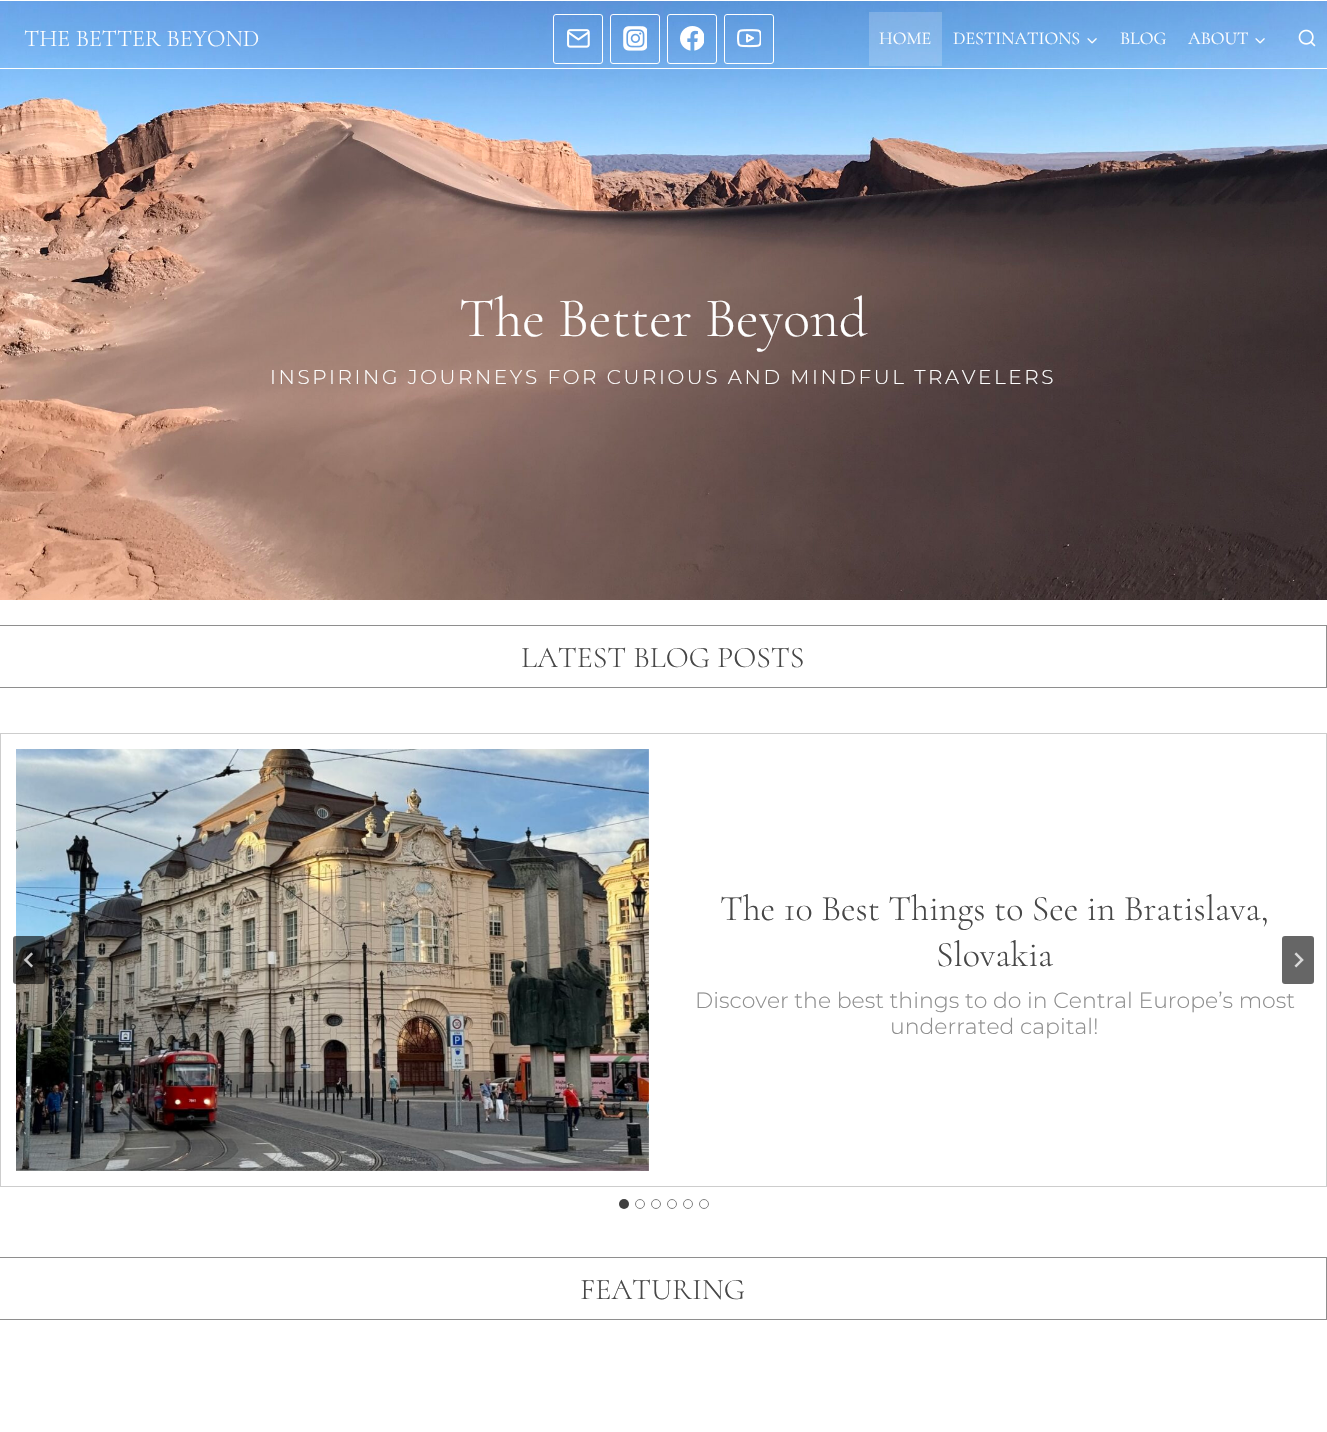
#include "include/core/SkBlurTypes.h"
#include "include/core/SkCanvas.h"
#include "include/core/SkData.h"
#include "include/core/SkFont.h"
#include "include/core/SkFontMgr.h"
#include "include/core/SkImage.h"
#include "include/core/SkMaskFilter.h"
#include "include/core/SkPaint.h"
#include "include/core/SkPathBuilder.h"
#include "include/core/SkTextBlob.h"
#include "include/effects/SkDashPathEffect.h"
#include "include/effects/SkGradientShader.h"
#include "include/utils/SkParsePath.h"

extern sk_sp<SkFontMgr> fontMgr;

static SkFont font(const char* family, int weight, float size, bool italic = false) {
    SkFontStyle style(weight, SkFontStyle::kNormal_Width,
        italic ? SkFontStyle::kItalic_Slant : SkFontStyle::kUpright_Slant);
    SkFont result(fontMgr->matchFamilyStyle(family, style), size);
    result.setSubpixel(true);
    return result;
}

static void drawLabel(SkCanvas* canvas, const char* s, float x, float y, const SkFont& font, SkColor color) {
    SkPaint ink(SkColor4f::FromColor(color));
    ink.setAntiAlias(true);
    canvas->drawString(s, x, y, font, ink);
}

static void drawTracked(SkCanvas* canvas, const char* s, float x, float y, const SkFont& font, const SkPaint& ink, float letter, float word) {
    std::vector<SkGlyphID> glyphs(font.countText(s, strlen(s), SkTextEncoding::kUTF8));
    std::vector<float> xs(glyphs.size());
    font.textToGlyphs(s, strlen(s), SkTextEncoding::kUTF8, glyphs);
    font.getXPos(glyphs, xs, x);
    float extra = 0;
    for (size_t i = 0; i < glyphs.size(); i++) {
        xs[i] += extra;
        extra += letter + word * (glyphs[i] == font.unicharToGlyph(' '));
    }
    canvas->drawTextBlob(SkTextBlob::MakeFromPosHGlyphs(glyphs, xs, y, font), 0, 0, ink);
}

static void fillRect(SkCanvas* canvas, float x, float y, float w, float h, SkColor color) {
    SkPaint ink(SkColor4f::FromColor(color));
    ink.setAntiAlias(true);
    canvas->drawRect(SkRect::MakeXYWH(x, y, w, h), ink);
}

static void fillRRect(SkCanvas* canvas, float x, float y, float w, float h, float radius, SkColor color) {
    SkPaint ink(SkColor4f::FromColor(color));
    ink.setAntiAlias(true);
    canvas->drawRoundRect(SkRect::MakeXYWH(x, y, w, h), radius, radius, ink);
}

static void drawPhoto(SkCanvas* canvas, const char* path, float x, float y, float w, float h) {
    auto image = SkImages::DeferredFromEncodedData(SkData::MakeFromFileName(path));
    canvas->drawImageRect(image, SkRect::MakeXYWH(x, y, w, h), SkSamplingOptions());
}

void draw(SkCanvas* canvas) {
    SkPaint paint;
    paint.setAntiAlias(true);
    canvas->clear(0xFFFFFFFF);
    drawPhoto(canvas, "assets/img8.png", 0, 1, 1327, 599);
    fillRect(canvas, 0, 68, 1327, 1, 0xFFFFFFFF);
    SkFont font1 = font("Cormorant Garamond", 300, 24);
    drawLabel(canvas, "THE BETTER BEYOND", 24, 46, font1, 0xFFFFFFFF);
    paint.setStroke(true);
    paint.setStrokeWidth(1);
    paint.setColor(0xFFFFFFFF);
    canvas->drawRoundRect(SkRect::MakeXYWH(553.5f, 14.5f, 49, 49), 2.5f, 2.5f, paint);
    drawPhoto(canvas, "assets/img1.png", 567, 29, 23, 19);
    canvas->drawRoundRect(SkRect::MakeXYWH(610.5f, 14.5f, 49, 49), 2.5f, 2.5f, paint);
    drawPhoto(canvas, "assets/img2.png", 623, 26, 24, 25);
    canvas->drawRoundRect(SkRect::MakeXYWH(667.5f, 14.5f, 49, 49), 2.5f, 2.5f, paint);
    drawPhoto(canvas, "assets/img3.png", 680, 26, 24, 25);
    canvas->drawRoundRect(SkRect::MakeXYWH(724.5f, 14.5f, 49, 49), 2.5f, 2.5f, paint);
    drawPhoto(canvas, "assets/img4.png", 737, 29, 24, 19);
    fillRect(canvas, 869, 12, 73, 54, 0x30FFFFFF);
    SkFont font2 = font("Cormorant Garamond", 400, 18);
    drawLabel(canvas, "HOME", 879, 44, font2, 0xFFFFFFFF);
    drawLabel(canvas, "DESTINATIONS", 953, 44, font2, 0xFFFFFFFF);
    drawPhoto(canvas, "assets/img5.png", 1087, 38, 10, 6);
    drawLabel(canvas, "BLOG", 1120, 44, font2, 0xFFFFFFFF);
    drawLabel(canvas, "ABOUT", 1188, 44, font2, 0xFFFFFFFF);
    drawPhoto(canvas, "assets/img6.png", 1255, 38, 10, 6);
    drawPhoto(canvas, "assets/img7.png", 1298, 29, 18, 18);
    SkFont font3 = font("Cormorant Garamond", 300, 56);
    drawLabel(canvas, "The Better Beyond", 459, 336, font3, 0xFFFFFFFF);
    SkFont font4 = font("Montserrat", 300, 20);
    paint.setStroke(false);
    drawTracked(canvas, "INSPIRING JOURNEYS FOR CURIOUS AND MINDFUL TRAVELERS", 270, 384, font4, paint, 2.6f, 0);
    fillRect(canvas, 0, 625, 1327, 1, 0xFF8E8E8E);
    fillRect(canvas, 1326, 625, 1, 63, 0xFF8E8E8E);
    fillRect(canvas, 0, 687, 1327, 1, 0xFF8E8E8E);
    SkFont font5 = font("Cormorant", 300, 30);
    drawLabel(canvas, "LATEST BLOG POSTS", 521, 667, font5, 0xFF474747);
    paint.setStroke(true);
    paint.setColor(0xFFCDCDCD);
    canvas->drawRect(SkRect::MakeXYWH(0.5f, 733.5f, 1326, 453), paint);
    drawPhoto(canvas, "assets/img9.png", 16, 749, 633, 422);
    SkFont font6 = font("Cormorant Garamond", 300, 36);
    drawLabel(canvas, "The 10 Best Things to See in Bratislava,", 720, 920, font6, 0xFF474747);
    drawLabel(canvas, "Slovakia", 936, 966, font6, 0xFF474747);
    SkFont font7 = font("Montserrat", 300, 22);
    drawLabel(canvas, "Discover the best things to do in Central Europe’s most", 695, 1008, font7, 0xFF8E8E8E);
    drawLabel(canvas, "underrated capital!", 890, 1034, font7, 0xFF8E8E8E);
    fillRRect(canvas, 13, 936, 32, 48, 3, 0x99000000);
    drawPhoto(canvas, "assets/img10.png", 23, 952, 10, 16);
    fillRRect(canvas, 1282, 936, 32, 48, 3, 0xFF666666);
    drawPhoto(canvas, "assets/img11.png", 1294, 952, 10, 16);
    paint.setStroke(false);
    paint.setColor(0xFF404040);
    canvas->drawCircle(624, 1204, 5, paint);
    paint.setStroke(true);
    paint.setColor(0xFF808080);
    canvas->drawCircle(640, 1204, 4.5f, paint);
    canvas->drawCircle(656, 1204, 4.5f, paint);
    canvas->drawCircle(672, 1204, 4.5f, paint);
    canvas->drawCircle(688, 1204, 4.5f, paint);
    canvas->drawCircle(704, 1204, 4.5f, paint);
    fillRect(canvas, 0, 1257, 1327, 1, 0xFF8E8E8E);
    fillRect(canvas, 1326, 1257, 1, 63, 0xFF8E8E8E);
    fillRect(canvas, 0, 1319, 1327, 1, 0xFF8E8E8E);
    drawLabel(canvas, "FEATURING", 580, 1299, font5, 0xFF474747);
}
